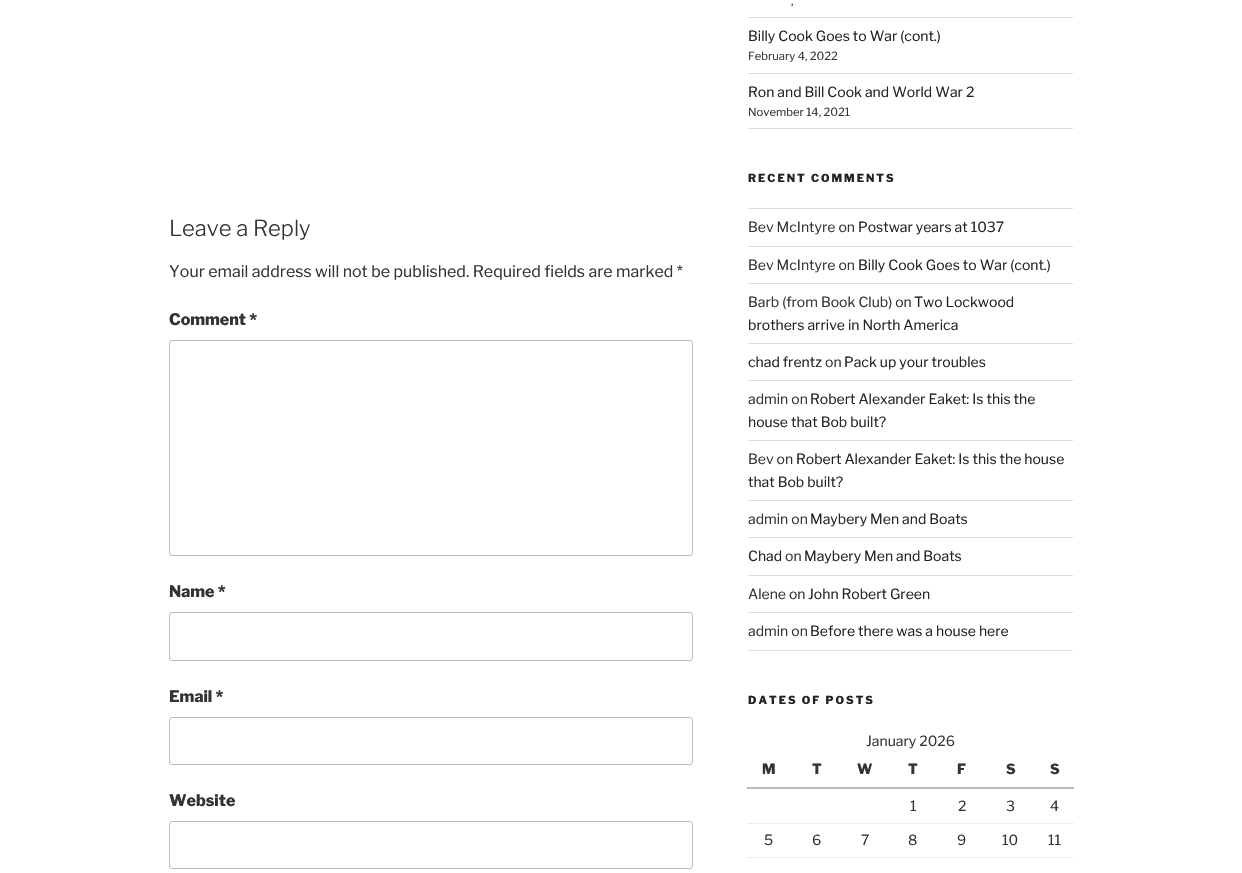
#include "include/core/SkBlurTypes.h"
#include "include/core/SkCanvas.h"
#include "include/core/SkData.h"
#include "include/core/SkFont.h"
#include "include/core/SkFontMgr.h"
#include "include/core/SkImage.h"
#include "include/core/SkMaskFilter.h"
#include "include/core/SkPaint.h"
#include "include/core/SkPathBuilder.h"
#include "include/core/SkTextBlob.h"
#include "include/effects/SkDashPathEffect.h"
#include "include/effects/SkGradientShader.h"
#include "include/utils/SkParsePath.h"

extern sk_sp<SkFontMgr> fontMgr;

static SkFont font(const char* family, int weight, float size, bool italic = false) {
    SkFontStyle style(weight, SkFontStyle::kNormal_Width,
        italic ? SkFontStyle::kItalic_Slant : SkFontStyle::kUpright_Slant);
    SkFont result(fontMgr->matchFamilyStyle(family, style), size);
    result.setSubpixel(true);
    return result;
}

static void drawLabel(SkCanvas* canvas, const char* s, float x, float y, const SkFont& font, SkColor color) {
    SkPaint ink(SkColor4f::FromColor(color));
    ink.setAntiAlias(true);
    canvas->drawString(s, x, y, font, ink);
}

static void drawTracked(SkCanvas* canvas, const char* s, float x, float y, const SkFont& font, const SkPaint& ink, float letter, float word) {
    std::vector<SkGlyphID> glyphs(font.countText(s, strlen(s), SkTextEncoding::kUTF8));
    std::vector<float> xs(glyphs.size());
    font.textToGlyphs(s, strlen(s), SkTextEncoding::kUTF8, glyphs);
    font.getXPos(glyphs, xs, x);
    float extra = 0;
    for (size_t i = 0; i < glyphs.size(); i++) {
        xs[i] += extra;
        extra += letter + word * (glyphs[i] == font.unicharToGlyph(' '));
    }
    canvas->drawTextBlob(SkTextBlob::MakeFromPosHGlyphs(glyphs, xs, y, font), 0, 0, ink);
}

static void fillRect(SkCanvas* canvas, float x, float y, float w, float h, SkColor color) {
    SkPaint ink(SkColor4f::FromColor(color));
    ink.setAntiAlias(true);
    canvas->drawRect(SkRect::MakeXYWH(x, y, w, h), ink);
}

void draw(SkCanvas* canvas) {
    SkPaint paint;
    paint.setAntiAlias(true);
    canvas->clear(0xFFFFFFFF);
    SkFont font1 = font("Libre Franklin", 300, 22);
    drawLabel(canvas, "Leave a Reply", 169, 236, font1, 0xFF333333);
    SkFont font2 = font("Libre Franklin", 400, 16);
    drawLabel(canvas, "Your email address will not be published. Required fields are marked *", 169, 277, font2, 0xFF333333);
    SkFont font3 = font("Libre Franklin", 800, 16);
    drawLabel(canvas, "Comment *", 169, 325, font3, 0xFF333333);
    paint.setStroke(true);
    paint.setStrokeWidth(1);
    paint.setColor(0xFFBBBBBB);
    canvas->drawRoundRect(SkRect::MakeXYWH(169.5f, 340.5f, 523, 215), 2.5f, 2.5f, paint);
    drawLabel(canvas, "Name *", 169, 597, font3, 0xFF333333);
    canvas->drawRoundRect(SkRect::MakeXYWH(169.5f, 612.5f, 523, 48), 2.5f, 2.5f, paint);
    drawLabel(canvas, "Email *", 169, 702, font3, 0xFF333333);
    canvas->drawRoundRect(SkRect::MakeXYWH(169.5f, 717.5f, 523, 47), 2.5f, 2.5f, paint);
    drawLabel(canvas, "Website", 169, 806, font3, 0xFF333333);
    canvas->drawRoundRect(SkRect::MakeXYWH(169.5f, 821.5f, 523, 47), 2.5f, 2.5f, paint);
    fillRect(canvas, 748, 17, 325, 1, 0xFFDDDDDD);
    SkFont font4 = font("Libre Franklin", 400, 11.25f);
    drawLabel(canvas, ",", 791, 5, font4, 0xFF333333);
    fillRect(canvas, 748, 73, 325, 1, 0xFFDDDDDD);
    SkFont font5 = font("Libre Franklin", 400, 14);
    drawLabel(canvas, "Billy Cook Goes to War (cont.)", 748, 41, font5, 0xFF222222);
    drawLabel(canvas, "February 4, 2022", 748, 60, font4, 0xFF333333);
    fillRect(canvas, 748, 128, 325, 1, 0xFFDDDDDD);
    drawLabel(canvas, "Ron and Bill Cook and World War 2", 748, 97, font5, 0xFF222222);
    drawLabel(canvas, "November 14, 2021", 748, 116, font4, 0xFF333333);
    SkFont font6 = font("Libre Franklin", 800, 11);
    paint.setStroke(false);
    paint.setColor(0xFF222222);
    drawTracked(canvas, "RECENT COMMENTS", 748, 182, font6, paint, 2, 0);
    fillRect(canvas, 748, 208, 325, 1, 0xFFDDDDDD);
    fillRect(canvas, 748, 246, 325, 1, 0xFFDDDDDD);
    drawLabel(canvas, "Bev McIntyre on", 748, 232, font5, 0xFF333333);
    drawLabel(canvas, "Postwar years at 1037", 858, 232, font5, 0xFF222222);
    fillRect(canvas, 748, 283, 325, 1, 0xFFDDDDDD);
    drawLabel(canvas, "Bev McIntyre on", 748, 270, font5, 0xFF333333);
    drawLabel(canvas, "Billy Cook Goes to War (cont.)", 858, 270, font5, 0xFF222222);
    fillRect(canvas, 748, 343, 325, 1, 0xFFDDDDDD);
    drawLabel(canvas, "Barb (from Book Club) on", 748, 307, font5, 0xFF333333);
    drawLabel(canvas, "Two Lockwood", 914, 307, font5, 0xFF222222);
    drawLabel(canvas, "brothers arrive in North America", 748, 330, font5, 0xFF222222);
    fillRect(canvas, 748, 380, 325, 1, 0xFFDDDDDD);
    drawLabel(canvas, "chad frentz", 748, 367, font5, 0xFF222222);
    drawLabel(canvas, "on", 825, 367, font5, 0xFF333333);
    drawLabel(canvas, "Pack up your troubles", 844, 367, font5, 0xFF222222);
    fillRect(canvas, 748, 440, 325, 1, 0xFFDDDDDD);
    drawLabel(canvas, "admin on", 748, 404, font5, 0xFF333333);
    drawLabel(canvas, "Robert Alexander Eaket: Is this the", 810, 404, font5, 0xFF222222);
    drawLabel(canvas, "house that Bob built?", 748, 427, font5, 0xFF222222);
    fillRect(canvas, 748, 500, 325, 1, 0xFFDDDDDD);
    drawLabel(canvas, "Bev on", 748, 464, font5, 0xFF333333);
    drawLabel(canvas, "Robert Alexander Eaket: Is this the house", 796, 464, font5, 0xFF222222);
    drawLabel(canvas, "that Bob built?", 748, 487, font5, 0xFF222222);
    fillRect(canvas, 748, 537, 325, 1, 0xFFDDDDDD);
    drawLabel(canvas, "admin on", 748, 524, font5, 0xFF333333);
    drawLabel(canvas, "Maybery Men and Boats", 810, 524, font5, 0xFF222222);
    fillRect(canvas, 748, 575, 325, 1, 0xFFDDDDDD);
    drawLabel(canvas, "Chad", 748, 561, font5, 0xFF222222);
    drawLabel(canvas, "on", 785, 561, font5, 0xFF333333);
    drawLabel(canvas, "Maybery Men and Boats", 804, 561, font5, 0xFF222222);
    fillRect(canvas, 748, 612, 325, 1, 0xFFDDDDDD);
    drawLabel(canvas, "Alene on", 748, 599, font5, 0xFF333333);
    drawLabel(canvas, "John Robert Green", 808, 599, font5, 0xFF222222);
    fillRect(canvas, 748, 650, 325, 1, 0xFFDDDDDD);
    drawLabel(canvas, "admin on", 748, 636, font5, 0xFF333333);
    drawLabel(canvas, "Before there was a house here", 810, 636, font5, 0xFF222222);
    drawTracked(canvas, "DATES OF POSTS", 748, 704, font6, paint, 2, 0);
    drawLabel(canvas, "January 2026", 866, 746, font5, 0xFF333333);
    SkFont font7 = font("Libre Franklin", 800, 14);
    drawLabel(canvas, "M", 762, 774, font7, 0xFF333333);
    drawLabel(canvas, "T", 812, 774, font7, 0xFF333333);
    drawLabel(canvas, "W", 857, 774, font7, 0xFF333333);
    drawLabel(canvas, "T", 908, 774, font7, 0xFF333333);
    drawLabel(canvas, "F", 957, 774, font7, 0xFF333333);
    drawLabel(canvas, "S", 1006, 774, font7, 0xFF333333);
    fillRect(canvas, 747, 787, 327, 2, 0xFFBBBBBB);
    drawLabel(canvas, "S", 1050, 774, font7, 0xFF333333);
    fillRect(canvas, 747, 823, 327, 1, 0xFFEEEEEE);
    drawLabel(canvas, "1", 910, 811, font5, 0xFF333333);
    drawLabel(canvas, "2", 958, 811, font5, 0xFF333333);
    drawLabel(canvas, "3", 1006, 811, font5, 0xFF333333);
    drawLabel(canvas, "4", 1050, 811, font5, 0xFF333333);
    fillRect(canvas, 747, 857, 327, 1, 0xFFEEEEEE);
    drawLabel(canvas, "5", 764, 845, font5, 0xFF333333);
    drawLabel(canvas, "6", 812, 845, font5, 0xFF333333);
    drawLabel(canvas, "7", 861, 845, font5, 0xFF333333);
    drawLabel(canvas, "8", 908, 845, font5, 0xFF333333);
    drawLabel(canvas, "9", 957, 845, font5, 0xFF333333);
    drawLabel(canvas, "10", 1002, 845, font5, 0xFF333333);
    drawLabel(canvas, "11", 1048, 845, font5, 0xFF333333);
}
